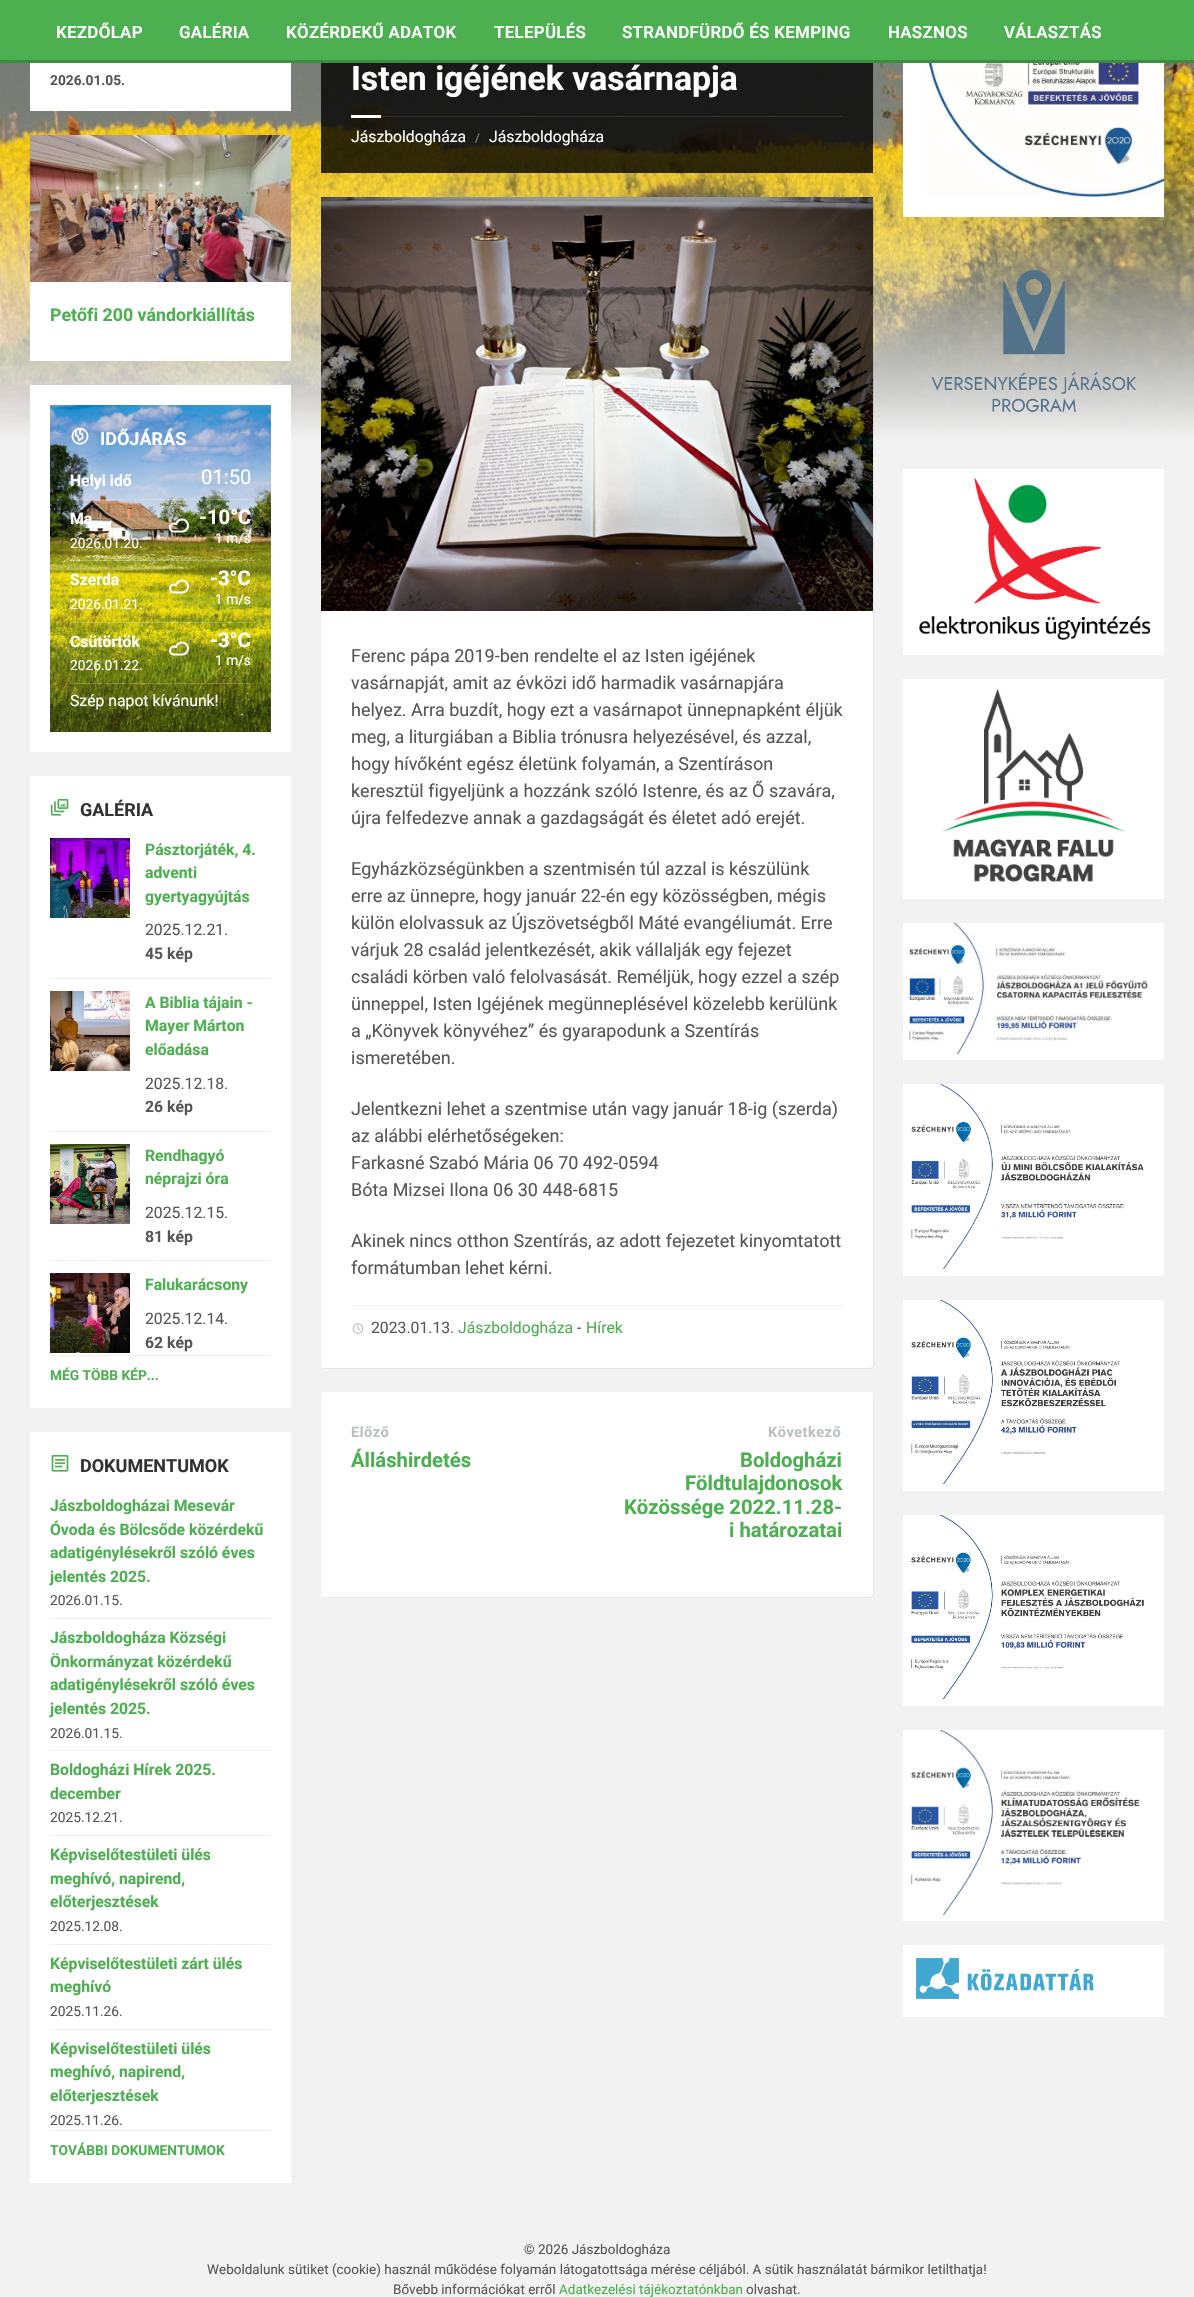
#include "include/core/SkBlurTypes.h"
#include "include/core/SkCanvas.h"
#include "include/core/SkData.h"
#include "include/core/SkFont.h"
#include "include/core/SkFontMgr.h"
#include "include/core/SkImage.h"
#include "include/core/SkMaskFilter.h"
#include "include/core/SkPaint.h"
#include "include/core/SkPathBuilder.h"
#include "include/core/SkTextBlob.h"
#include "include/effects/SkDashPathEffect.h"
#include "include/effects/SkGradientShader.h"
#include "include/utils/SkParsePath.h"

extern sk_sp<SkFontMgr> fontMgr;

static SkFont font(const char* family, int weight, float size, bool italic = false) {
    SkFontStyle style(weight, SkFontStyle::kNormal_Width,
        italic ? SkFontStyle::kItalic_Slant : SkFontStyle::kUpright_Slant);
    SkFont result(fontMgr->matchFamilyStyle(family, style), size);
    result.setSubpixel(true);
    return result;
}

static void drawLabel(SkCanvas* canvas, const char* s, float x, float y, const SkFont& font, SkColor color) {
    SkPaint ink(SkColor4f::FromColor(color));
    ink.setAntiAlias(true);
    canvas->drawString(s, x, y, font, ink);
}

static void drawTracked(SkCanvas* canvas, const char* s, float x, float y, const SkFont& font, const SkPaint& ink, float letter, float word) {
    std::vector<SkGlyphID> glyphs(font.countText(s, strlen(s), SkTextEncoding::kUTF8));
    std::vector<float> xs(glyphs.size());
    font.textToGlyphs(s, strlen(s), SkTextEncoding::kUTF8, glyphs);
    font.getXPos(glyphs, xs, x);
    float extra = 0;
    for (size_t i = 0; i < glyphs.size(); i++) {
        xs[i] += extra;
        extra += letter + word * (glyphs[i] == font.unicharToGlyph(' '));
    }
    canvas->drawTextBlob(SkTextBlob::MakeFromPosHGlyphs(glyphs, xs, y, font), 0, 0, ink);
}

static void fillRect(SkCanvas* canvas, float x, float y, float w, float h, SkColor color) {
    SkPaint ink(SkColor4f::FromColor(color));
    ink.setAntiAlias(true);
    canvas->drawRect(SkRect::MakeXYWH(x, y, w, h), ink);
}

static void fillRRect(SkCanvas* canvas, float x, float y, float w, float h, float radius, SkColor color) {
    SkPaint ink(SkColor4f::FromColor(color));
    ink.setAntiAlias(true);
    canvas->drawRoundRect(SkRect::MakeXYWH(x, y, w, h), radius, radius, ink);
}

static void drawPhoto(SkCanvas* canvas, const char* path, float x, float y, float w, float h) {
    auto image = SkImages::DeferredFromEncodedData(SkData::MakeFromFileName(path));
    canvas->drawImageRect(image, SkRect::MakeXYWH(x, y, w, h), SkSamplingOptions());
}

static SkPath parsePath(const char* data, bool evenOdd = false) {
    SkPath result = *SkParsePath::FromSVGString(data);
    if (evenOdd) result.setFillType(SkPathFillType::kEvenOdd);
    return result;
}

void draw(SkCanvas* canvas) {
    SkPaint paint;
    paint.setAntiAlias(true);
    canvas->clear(0xFFF2F2F2);
    fillRect(canvas, 0, 0, 1194, 60, 0xFF4CAF50);
    fillRect(canvas, 0, 60, 1194, 3, 0xFF3D8C40);
    SkFont font1 = font("Roboto", 600, 16.9f);
    paint.setColor(0xFFFFFFFF);
    drawTracked(canvas, "KEZDŐLAP", 56, 38, font1, paint, 0.3f, 0);
    drawTracked(canvas, "GALÉRIA", 179, 38, font1, paint, 0.3f, 0);
    drawTracked(canvas, "KÖZÉRDEKŰ ADATOK", 286, 38, font1, paint, 0.3f, 0);
    drawTracked(canvas, "TELEPÜLÉS", 494, 38, font1, paint, 0.3f, 0);
    drawTracked(canvas, "STRANDFÜRDŐ ÉS KEMPING", 622, 38, font1, paint, 0.3f, 0);
    drawTracked(canvas, "HASZNOS", 888, 38, font1, paint, 0.3f, 0);
    drawTracked(canvas, "VÁLASZTÁS", 1004, 38, font1, paint, 0.3f, 0);
    drawPhoto(canvas, "assets/img1.png", 0, 63, 1194, 378);
    fillRect(canvas, 30, 63, 261, 48, 0xFFFFFFFF);
    SkFont font2 = font("Roboto", 700, 13.75f);
    drawLabel(canvas, "2026.01.05.", 50, 85, font2, 0xFF565656);
    fillRect(canvas, 30, 282, 261, 79, 0xFFFFFFFF);
    drawPhoto(canvas, "assets/img2.png", 30, 135, 261, 147);
    SkFont font3 = font("Roboto", 700, 17.75f);
    drawLabel(canvas, "Petőfi 200 vándorkiállítás", 50, 321, font3, 0xFF4CAF50);
    fillRect(canvas, 30, 385, 261, 367, 0xFFFFFFFF);
    drawPhoto(canvas, "assets/img3.png", 50, 405, 221, 327);
    drawPhoto(canvas, "assets/img4.png", 71, 427, 18, 18);
    SkFont font4 = font("Roboto", 700, 18);
    drawLabel(canvas, "IDŐJÁRÁS", 100, 445, font4, 0xFFFFFFFF);
    SkFont font5 = font("Roboto", 700, 15.75f);
    drawLabel(canvas, "Helyi idő", 70, 486, font5, 0xFFFFFFFF);
    SkFont font6 = font("Roboto", 400, 20.25f);
    drawLabel(canvas, "01:50", 201, 484, font6, 0xFFFFFFFF);
    fillRect(canvas, 70, 499, 181, 1, 0x33FFFFFF);
    drawLabel(canvas, "Ma", 70, 524, font5, 0xFFFFFFFF);
    SkFont font7 = font("Roboto", 400, 13.75f);
    drawLabel(canvas, "2026.01.20.", 70, 548, font7, 0xFFFFFFFF);
    drawPhoto(canvas, "assets/img5.png", 169, 518, 20, 15);
    SkFont font8 = font("Roboto", 700, 20.25f);
    drawLabel(canvas, "-10°C", 199, 524, font8, 0xFFFFFFFF);
    drawLabel(canvas, "1 m/s", 215, 543, font7, 0xFFFFFFFF);
    fillRect(canvas, 70, 560, 181, 1, 0x33FFFFFF);
    drawLabel(canvas, "Szerda", 70, 585, font5, 0xFFFFFFFF);
    drawLabel(canvas, "2026.01.21.", 70, 609, font7, 0xFFFFFFFF);
    drawPhoto(canvas, "assets/img6.png", 169, 579, 20, 15);
    drawLabel(canvas, "-3°C", 210, 585, font8, 0xFFFFFFFF);
    drawLabel(canvas, "1 m/s", 215, 604, font7, 0xFFFFFFFF);
    fillRect(canvas, 70, 622, 181, 1, 0x33FFFFFF);
    drawLabel(canvas, "Csütörtök", 70, 647, font5, 0xFFFFFFFF);
    drawLabel(canvas, "2026.01.22.", 70, 670, font7, 0xFFFFFFFF);
    drawPhoto(canvas, "assets/img7.png", 169, 641, 20, 15);
    drawLabel(canvas, "-3°C", 210, 647, font8, 0xFFFFFFFF);
    drawLabel(canvas, "1 m/s", 215, 665, font7, 0xFFFFFFFF);
    fillRect(canvas, 70, 683, 181, 1, 0x33FFFFFF);
    SkFont font9 = font("Roboto", 400, 15.75f);
    drawLabel(canvas, "Szép napot kívánunk!", 70, 706, font9, 0xFFFFFFFF);
    fillRect(canvas, 30, 776, 261, 632, 0xFFFFFFFF);
    drawPhoto(canvas, "assets/img8.png", 50, 798, 19, 18);
    drawLabel(canvas, "GALÉRIA", 80, 816, font4, 0xFF333333);
    drawPhoto(canvas, "assets/img9.png", 50, 838, 80, 80);
    drawLabel(canvas, "Pásztorjáték, 4.", 145, 855, font5, 0xFF4CAF50);
    drawLabel(canvas, "adventi", 145, 878, font5, 0xFF4CAF50);
    drawLabel(canvas, "gyertyagyújtás", 145, 902, font5, 0xFF4CAF50);
    drawLabel(canvas, "2025.12.21.", 145, 935, font9, 0xFF565656);
    drawLabel(canvas, "45 kép", 145, 959, font5, 0xFF565656);
    fillRect(canvas, 50, 978, 221, 1, 0xFFF0F0F0);
    drawPhoto(canvas, "assets/img10.png", 50, 991, 80, 80);
    drawLabel(canvas, "A Biblia tájain -", 145, 1008, font5, 0xFF4CAF50);
    drawLabel(canvas, "Mayer Márton", 145, 1031, font5, 0xFF4CAF50);
    drawLabel(canvas, "előadása", 145, 1055, font5, 0xFF4CAF50);
    drawLabel(canvas, "2025.12.18.", 145, 1089, font9, 0xFF565656);
    drawLabel(canvas, "26 kép", 145, 1112, font5, 0xFF565656);
    fillRect(canvas, 50, 1131, 221, 1, 0xFFF0F0F0);
    drawPhoto(canvas, "assets/img11.png", 50, 1144, 80, 80);
    drawLabel(canvas, "Rendhagyó", 145, 1161, font5, 0xFF4CAF50);
    drawLabel(canvas, "néprajzi óra", 145, 1184, font5, 0xFF4CAF50);
    drawLabel(canvas, "2025.12.15.", 145, 1218, font9, 0xFF565656);
    drawLabel(canvas, "81 kép", 145, 1242, font5, 0xFF565656);
    fillRect(canvas, 50, 1260, 221, 1, 0xFFF0F0F0);
    drawPhoto(canvas, "assets/img12.png", 50, 1273, 80, 80);
    drawLabel(canvas, "Falukarácsony", 145, 1290, font5, 0xFF4CAF50);
    drawLabel(canvas, "2025.12.14.", 145, 1324, font9, 0xFF565656);
    drawLabel(canvas, "62 kép", 145, 1348, font5, 0xFF565656);
    fillRect(canvas, 50, 1355, 221, 1, 0xFFF0F0F0);
    drawLabel(canvas, "MÉG TÖBB KÉP...", 50, 1380, font2, 0xFF4CAF50);
    fillRect(canvas, 30, 1432, 261, 751, 0xFFFFFFFF);
    drawPhoto(canvas, "assets/img13.png", 51, 1454, 18, 18);
    drawLabel(canvas, "DOKUMENTUMOK", 80, 1472, font4, 0xFF333333);
    drawLabel(canvas, "Jászboldogházai Mesevár", 50, 1511, font5, 0xFF4CAF50);
    drawLabel(canvas, "Óvoda és Bölcsőde közérdekű", 50, 1535, font5, 0xFF4CAF50);
    drawLabel(canvas, "adatigénylésekről szóló éves", 50, 1558, font5, 0xFF4CAF50);
    drawLabel(canvas, "jelentés 2025.", 50, 1582, font5, 0xFF4CAF50);
    drawLabel(canvas, "2026.01.15.", 50, 1605, font7, 0xFF565656);
    fillRect(canvas, 50, 1618, 221, 1, 0xFFF0F0F0);
    drawLabel(canvas, "Jászboldogháza Községi", 50, 1643, font5, 0xFF4CAF50);
    drawLabel(canvas, "Önkormányzat közérdekű", 50, 1667, font5, 0xFF4CAF50);
    drawLabel(canvas, "adatigénylésekről szóló éves", 50, 1690, font5, 0xFF4CAF50);
    drawLabel(canvas, "jelentés 2025.", 50, 1714, font5, 0xFF4CAF50);
    drawLabel(canvas, "2026.01.15.", 50, 1738, font7, 0xFF565656);
    fillRect(canvas, 50, 1750, 221, 1, 0xFFF0F0F0);
    drawLabel(canvas, "Boldogházi Hírek 2025.", 50, 1775, font5, 0xFF4CAF50);
    drawLabel(canvas, "december", 50, 1799, font5, 0xFF4CAF50);
    drawLabel(canvas, "2025.12.21.", 50, 1822, font7, 0xFF565656);
    fillRect(canvas, 50, 1835, 221, 1, 0xFFF0F0F0);
    drawLabel(canvas, "Képviselőtestületi ülés", 50, 1860, font5, 0xFF4CAF50);
    drawLabel(canvas, "meghívó, napirend,", 50, 1884, font5, 0xFF4CAF50);
    drawLabel(canvas, "előterjesztések", 50, 1907, font5, 0xFF4CAF50);
    drawLabel(canvas, "2025.12.08.", 50, 1931, font7, 0xFF565656);
    fillRect(canvas, 50, 1944, 221, 1, 0xFFF0F0F0);
    drawLabel(canvas, "Képviselőtestületi zárt ülés", 50, 1969, font5, 0xFF4CAF50);
    drawLabel(canvas, "meghívó", 50, 1992, font5, 0xFF4CAF50);
    drawLabel(canvas, "2025.11.26.", 50, 2016, font7, 0xFF565656);
    fillRect(canvas, 50, 2029, 221, 1, 0xFFF0F0F0);
    drawLabel(canvas, "Képviselőtestületi ülés", 50, 2054, font5, 0xFF4CAF50);
    drawLabel(canvas, "meghívó, napirend,", 50, 2077, font5, 0xFF4CAF50);
    drawLabel(canvas, "előterjesztések", 50, 2101, font5, 0xFF4CAF50);
    drawLabel(canvas, "2025.11.26.", 50, 2125, font7, 0xFF565656);
    fillRect(canvas, 50, 2130, 221, 1, 0xFFF0F0F0);
    drawLabel(canvas, "TOVÁBBI DOKUMENTUMOK", 50, 2155, font2, 0xFF4CAF50);
    fillRect(canvas, 321, 63, 552, 110, 0xCC000000);
    SkFont font10 = font("Roboto", 700, 33.75f);
    drawLabel(canvas, "Isten igéjének vasárnapja", 351, 90, font10, 0xFFFFFFFF);
    fillRect(canvas, 381, 116, 462, 1, 0x1AFFFFFF);
    fillRect(canvas, 351, 115, 30, 3, 0xFFFFFFFF);
    drawLabel(canvas, "Jászboldogháza", 351, 142, font9, 0xFFFFFFFF);
    SkFont font11 = font("Roboto", 400, 12);
    drawLabel(canvas, "/", 475, 142, font11, 0xFF8A949B);
    drawLabel(canvas, "Jászboldogháza", 489, 142, font9, 0xFFFFFFFF);
    paint.setColor(0x0D000000);
    canvas->drawPath(parsePath("M323 1367C323 1368 325 1369 326 1369H870C872 1369 874 1367 874 1365V202C874 201 873 199 872 199L873 201V1364C873 1366 871 1368 869 1368H325Z"), paint);
    fillRRect(canvas, 321, 197, 552, 1171, 4, 0xFFFFFFFF);
    drawPhoto(canvas, "assets/img14.png", 321, 197, 552, 414);
    SkFont font12 = font("Roboto", 400, 18);
    drawLabel(canvas, "Ferenc pápa 2019-ben rendelte el az Isten igéjének", 351, 662, font12, 0xFF565656);
    drawLabel(canvas, "vasárnapját, amit az évközi idő harmadik vasárnapjára", 351, 689, font12, 0xFF565656);
    drawLabel(canvas, "helyez. Arra buzdít, hogy ezt a vasárnapot ünnepnapként éljük", 351, 716, font12, 0xFF565656);
    drawLabel(canvas, "meg, a liturgiában a Biblia trónusra helyezésével, és azzal,", 351, 743, font12, 0xFF565656);
    drawLabel(canvas, "hogy hívőként egész életünk folyamán, a Szentíráson", 351, 770, font12, 0xFF565656);
    drawLabel(canvas, "keresztül figyeljünk a hozzánk szóló Istenre, és az Ő szavára,", 351, 797, font12, 0xFF565656);
    drawLabel(canvas, "újra felfedezve annak a gazdagságát és életet adó erejét.", 351, 824, font12, 0xFF565656);
    drawLabel(canvas, "Egyházközségünkben a szentmisén túl azzal is készülünk", 351, 875, font12, 0xFF565656);
    drawLabel(canvas, "erre az ünnepre, hogy január 22-én egy közösségben, mégis", 351, 902, font12, 0xFF565656);
    drawLabel(canvas, "külön elolvassuk az Újszövetségből Máté evangéliumát. Erre", 351, 929, font12, 0xFF565656);
    drawLabel(canvas, "várjuk 28 család jelentkezését, akik vállalják egy fejezet", 351, 956, font12, 0xFF565656);
    drawLabel(canvas, "családi körben való felolvasását. Reméljük, hogy ezzel a szép", 351, 983, font12, 0xFF565656);
    drawLabel(canvas, "ünneppel, Isten Igéjének megünneplésével közelebb kerülünk", 351, 1010, font12, 0xFF565656);
    drawLabel(canvas, "a „Könyvek könyvéhez” és gyarapodunk a Szentírás", 351, 1037, font12, 0xFF565656);
    drawLabel(canvas, "ismeretében.", 351, 1064, font12, 0xFF565656);
    drawLabel(canvas, "Jelentkezni lehet a szentmise után vagy január 18-ig (szerda)", 351, 1115, font12, 0xFF565656);
    drawLabel(canvas, "az alábbi elérhetőségeken:", 351, 1142, font12, 0xFF565656);
    drawLabel(canvas, "Farkasné Szabó Mária 06 70 492-0594", 351, 1169, font12, 0xFF565656);
    drawLabel(canvas, "Bóta Mizsei Ilona 06 30 448-6815", 351, 1196, font12, 0xFF565656);
    drawLabel(canvas, "Akinek nincs otthon Szentírás, az adott fejezetet kinyomtatott", 351, 1247, font12, 0xFF565656);
    drawLabel(canvas, "formátumban lehet kérni.", 351, 1274, font12, 0xFF565656);
    fillRect(canvas, 351, 1305, 492, 1, 0xFFF0F0F0);
    drawPhoto(canvas, "assets/img15.png", 352, 1323, 12, 11);
    drawLabel(canvas, "2023.01.13.", 371, 1333, font9, 0xFF565656);
    drawLabel(canvas, "Jászboldogháza", 458, 1333, font9, 0xFF4CAF50);
    drawLabel(canvas, "-", 577, 1333, font9, 0xFF565656);
    drawLabel(canvas, "Hírek", 586, 1333, font9, 0xFF4CAF50);
    paint.setColor(0xFFE6E6E6);
    canvas->drawPath(parsePath("M323 1596C323 1597 325 1598 326 1598H870C872 1598 874 1596 874 1594V1397C874 1396 873 1394 872 1394L873 1396V1593C873 1595 871 1597 869 1597H325Z"), paint);
    fillRRect(canvas, 321, 1392, 552, 205, 4, 0xFFFFFFFF);
    SkFont font13 = font("Roboto", 700, 14.5f);
    paint.setColor(0xFFB9BFC3);
    drawTracked(canvas, "Előző", 351, 1437, font13, paint, 0.5f, 0);
    drawLabel(canvas, "Álláshirdetés", 351, 1467, font8, 0xFF4CAF50);
    drawTracked(canvas, "Következő", 768, 1437, font13, paint, 0.5f, 0);
    drawLabel(canvas, "Boldogházi", 740, 1467, font8, 0xFF4CAF50);
    drawLabel(canvas, "Földtulajdonosok", 685, 1490, font8, 0xFF4CAF50);
    drawLabel(canvas, "Közössége 2022.11.28-", 624, 1514, font8, 0xFF4CAF50);
    drawLabel(canvas, "i határozatai", 729, 1537, font8, 0xFF4CAF50);
    fillRect(canvas, 903, 63, 261, 154, 0xFFFFFFFF);
    drawPhoto(canvas, "assets/img16.png", 923, 63, 241, 134);
    drawPhoto(canvas, "assets/img17.png", 931, 270, 205, 142);
    fillRect(canvas, 903, 469, 261, 186, 0xFFFFFFFF);
    drawPhoto(canvas, "assets/img18.png", 919, 477, 232, 163);
    fillRect(canvas, 903, 679, 261, 220, 0xFFFFFFFF);
    drawPhoto(canvas, "assets/img19.png", 942, 688, 183, 194);
    fillRect(canvas, 903, 923, 261, 137, 0xFFFFFFFF);
    drawPhoto(canvas, "assets/img20.png", 903, 923, 246, 131);
    fillRect(canvas, 903, 1084, 261, 192, 0xFFFFFFFF);
    drawPhoto(canvas, "assets/img21.png", 911, 1084, 233, 185);
    fillRect(canvas, 903, 1300, 261, 191, 0xFFFFFFFF);
    drawPhoto(canvas, "assets/img22.png", 911, 1300, 209, 184);
    fillRect(canvas, 903, 1515, 261, 191, 0xFFFFFFFF);
    drawPhoto(canvas, "assets/img23.png", 911, 1515, 233, 184);
    fillRect(canvas, 903, 1730, 261, 191, 0xFFFFFFFF);
    drawPhoto(canvas, "assets/img24.png", 911, 1730, 229, 185);
    fillRect(canvas, 903, 1945, 261, 72, 0xFFFFFFFF);
    drawPhoto(canvas, "assets/img25.png", 916, 1958, 178, 41);
    SkFont font14 = font("Roboto", 400, 13.5f);
    drawLabel(canvas, "© 2026 Jászboldogháza", 524, 2254, font14, 0xFF565656);
    drawLabel(canvas, "Weboldalunk sütiket (cookie) használ működése folyamán látogatottsága mérése céljából. A sütik használatát bármikor letilthatja!", 207, 2274, font14, 0xFF565656);
    drawLabel(canvas, "Bővebb információkat erről", 393, 2294, font14, 0xFF565656);
    drawLabel(canvas, "Adatkezelési tájékoztatónkban", 559, 2294, font14, 0xFF4CAF50);
    drawLabel(canvas, "olvashat.", 746, 2294, font14, 0xFF565656);
}
